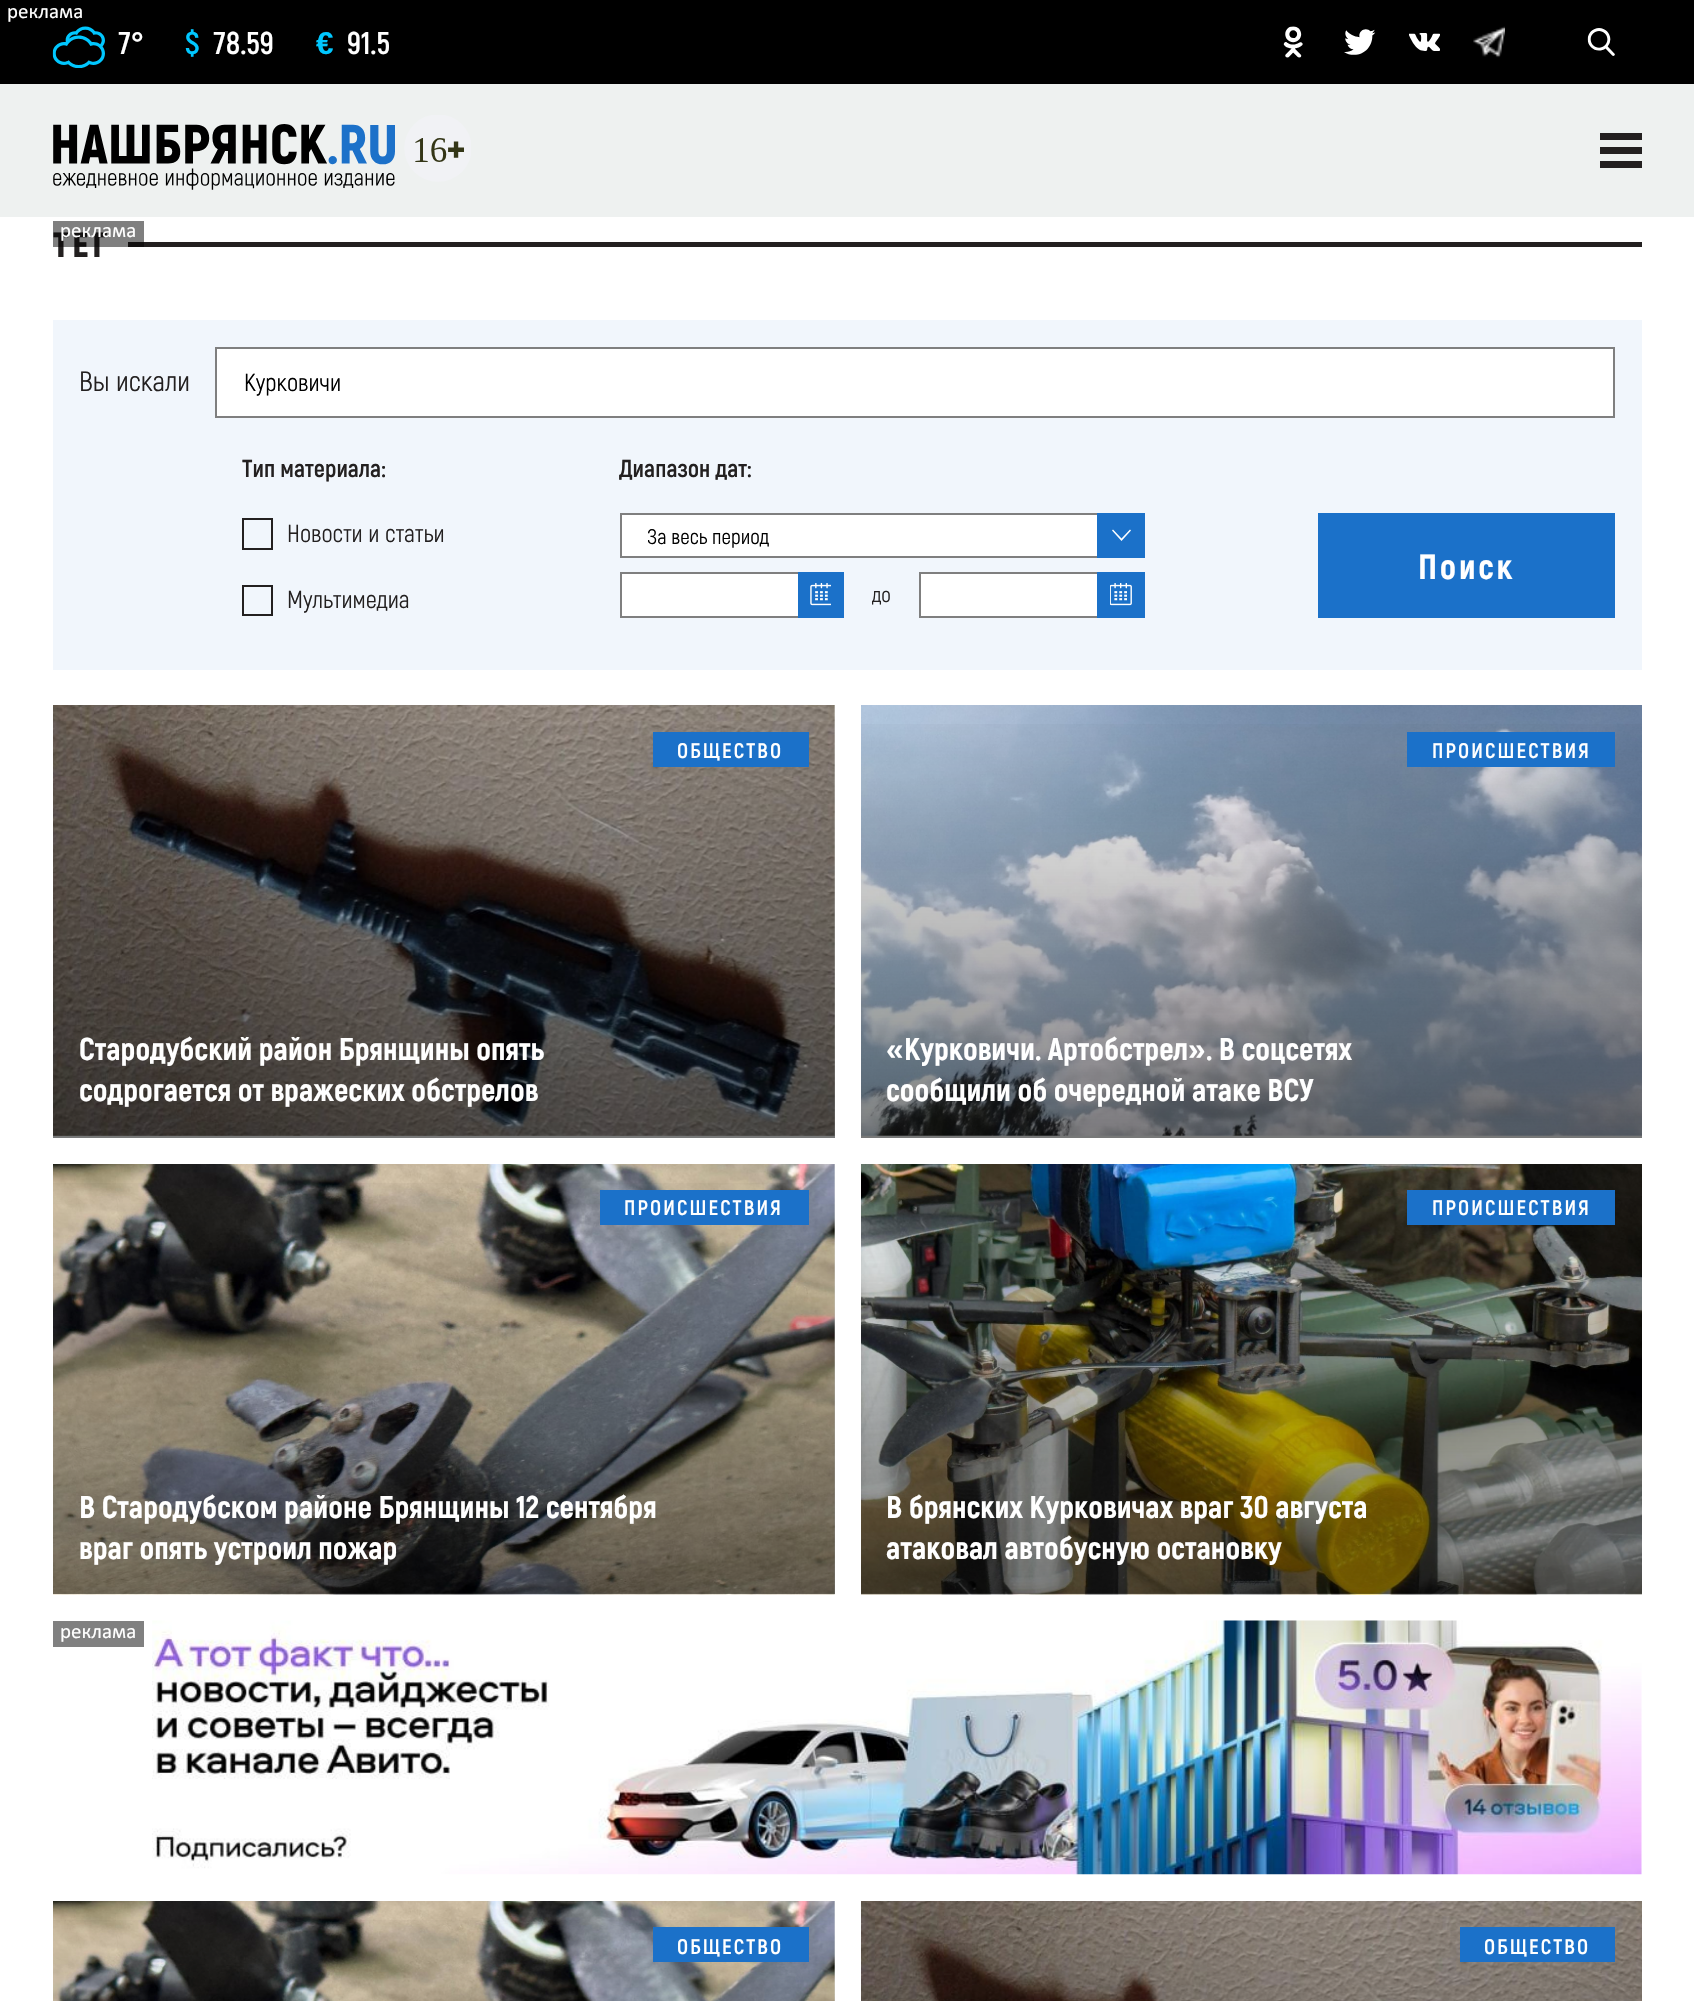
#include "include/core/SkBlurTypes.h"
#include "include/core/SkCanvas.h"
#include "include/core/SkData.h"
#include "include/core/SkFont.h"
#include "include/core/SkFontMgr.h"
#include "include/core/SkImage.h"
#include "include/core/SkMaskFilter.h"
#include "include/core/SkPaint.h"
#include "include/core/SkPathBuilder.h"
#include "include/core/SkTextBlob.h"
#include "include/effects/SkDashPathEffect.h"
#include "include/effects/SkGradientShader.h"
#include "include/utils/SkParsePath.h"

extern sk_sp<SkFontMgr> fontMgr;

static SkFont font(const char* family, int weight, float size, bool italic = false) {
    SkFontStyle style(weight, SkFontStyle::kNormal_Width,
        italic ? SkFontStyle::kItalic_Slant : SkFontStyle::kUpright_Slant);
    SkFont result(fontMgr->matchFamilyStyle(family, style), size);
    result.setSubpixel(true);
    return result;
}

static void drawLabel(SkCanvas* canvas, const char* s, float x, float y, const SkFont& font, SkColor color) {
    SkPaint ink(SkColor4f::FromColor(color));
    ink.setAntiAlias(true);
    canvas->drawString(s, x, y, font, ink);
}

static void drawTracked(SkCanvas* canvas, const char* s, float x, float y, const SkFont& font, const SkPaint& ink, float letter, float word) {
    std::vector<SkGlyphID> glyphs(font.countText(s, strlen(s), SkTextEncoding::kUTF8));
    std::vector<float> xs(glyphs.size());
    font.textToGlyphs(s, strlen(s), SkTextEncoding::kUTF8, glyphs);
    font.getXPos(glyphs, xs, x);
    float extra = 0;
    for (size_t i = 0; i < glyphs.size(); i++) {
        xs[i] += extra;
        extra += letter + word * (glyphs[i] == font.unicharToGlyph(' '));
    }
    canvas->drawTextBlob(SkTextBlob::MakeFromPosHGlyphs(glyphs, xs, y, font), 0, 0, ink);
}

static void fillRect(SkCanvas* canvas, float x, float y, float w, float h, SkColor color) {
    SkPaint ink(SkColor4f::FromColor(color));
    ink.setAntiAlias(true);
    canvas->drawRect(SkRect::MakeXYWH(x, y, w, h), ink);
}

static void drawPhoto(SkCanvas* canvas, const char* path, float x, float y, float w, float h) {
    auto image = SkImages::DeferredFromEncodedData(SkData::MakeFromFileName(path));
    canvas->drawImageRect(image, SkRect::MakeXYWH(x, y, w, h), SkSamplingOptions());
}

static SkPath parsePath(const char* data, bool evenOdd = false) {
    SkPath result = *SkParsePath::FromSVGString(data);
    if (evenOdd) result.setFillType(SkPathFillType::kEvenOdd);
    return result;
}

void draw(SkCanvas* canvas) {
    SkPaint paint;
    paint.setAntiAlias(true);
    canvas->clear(0xFFFFFFFF);
    fillRect(canvas, 0, 0, 1694, 84, 0xFF000000);
    SkFont font1 = font("Calibri", 400, 21);
    drawLabel(canvas, "реклама", 7, 18, font1, 0xFFFFFFFF);
    drawPhoto(canvas, "assets/img1.png", 52, 26, 53, 42);
    SkFont font2 = font("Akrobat", 700, 31.5f);
    drawLabel(canvas, "7", 119, 54, font2, 0xFFFFFFFF);
    SkFont font3 = font("Liberation Sans", 700, 31.5f);
    drawLabel(canvas, "°", 131, 54, font3, 0xFFFFFFFF);
    drawLabel(canvas, "$", 185, 54, font2, 0xFF00C7FF);
    drawLabel(canvas, "78.59", 214, 54, font2, 0xFFFFFFFF);
    drawLabel(canvas, "€", 316, 54, font3, 0xFF00C7FF);
    drawLabel(canvas, "91.5", 347, 54, font2, 0xFFFFFFFF);
    drawPhoto(canvas, "assets/img2.png", 1283, 26, 20, 32);
    drawPhoto(canvas, "assets/img3.png", 1344, 29, 32, 26);
    drawPhoto(canvas, "assets/img4.png", 1409, 33, 31, 18);
    drawPhoto(canvas, "assets/img5.png", 1473, 26, 32, 32);
    drawPhoto(canvas, "assets/img6.png", 1587, 28, 28, 28);
    fillRect(canvas, 0, 84, 1694, 133, 0xFFEEF1F0);
    drawPhoto(canvas, "assets/img7.png", 53, 115, 418, 75);
    fillRect(canvas, 1600, 147, 42, 7, 0xFF232020);
    fillRect(canvas, 1600, 133, 42, 7, 0xFF232020);
    fillRect(canvas, 1600, 161, 42, 7, 0xFF232020);
    SkFont font4 = font("Akrobat", 900, 35);
    paint.setColor(0xFF232020);
    drawTracked(canvas, "ТЕГ", 53, 257, font4, paint, 3.5f, 0);
    fillRect(canvas, 128, 242, 1514, 5, 0xFF232020);
    fillRect(canvas, 53, 221, 91, 26, 0x80000000);
    drawLabel(canvas, "реклама", 60, 237, font1, 0xFFFFFFFF);
    fillRect(canvas, 53, 320, 1589, 350, 0xFFF1F6FC);
    SkFont font5 = font("Akrobat", 400, 28);
    drawLabel(canvas, "Вы искали", 79, 391, font5, 0xFF232020);
    paint.setColor(0xFFFFFFFF);
    canvas->drawRect(SkRect::MakeXYWH(216, 348, 1398, 69), paint);
    paint.setStroke(true);
    paint.setStrokeWidth(2);
    paint.setColor(0xFF7F7F7F);
    canvas->drawRect(SkRect::MakeXYWH(216, 348, 1398, 69), paint);
    SkFont font6 = font("Akrobat", 400, 24.5f);
    drawLabel(canvas, "Курковичи", 244, 391, font6, 0xFF000000);
    SkFont font7 = font("Akrobat", 700, 24.5f);
    drawLabel(canvas, "Тип материала:", 242, 477, font7, 0xFF232020);
    paint.setColor(0xFF232020);
    canvas->drawRect(SkRect::MakeXYWH(243, 519, 29, 30), paint);
    drawLabel(canvas, "Новости и статьи", 287, 542, font6, 0xFF232020);
    canvas->drawRect(SkRect::MakeXYWH(243, 586, 29, 29), paint);
    drawLabel(canvas, "Мультимедиа", 287, 608, font6, 0xFF232020);
    drawLabel(canvas, "Диапазон дат:", 619, 477, font7, 0xFF232020);
    fillRect(canvas, 622, 515, 475, 41, 0xFFFFFFFF);
    paint.setColor(0xFF7F7F7F);
    canvas->drawRect(SkRect::MakeXYWH(621, 514, 523, 43), paint);
    canvas->save();
    canvas->clipRect(SkRect::MakeXYWH(648, 523, 448, 25));
    SkFont font8 = font("Akrobat", 400, 21);
    drawLabel(canvas, "За весь период", 647, 544, font8, 0xFF000000);
    canvas->restore();
    fillRect(canvas, 1097, 513, 48, 45, 0xFF1B71C9);
    paint.setStroke(false);
    paint.setColor(0xFFFFFFFF);
    canvas->drawPath(parsePath("M1130 529.5L1131 530.5L1121.5 541L1112 530.5L1113 529.5L1121.5 538.5Z"), paint);
    fillRect(canvas, 622, 574, 176, 42, 0xFFFFFFFF);
    paint.setStroke(true);
    paint.setColor(0xFF7F7F7F);
    canvas->drawRect(SkRect::MakeXYWH(621, 573, 222, 44), paint);
    fillRect(canvas, 798, 572, 46, 46, 0xFF1B71C9);
    drawPhoto(canvas, "assets/img8.png", 810, 583, 21, 23);
    drawLabel(canvas, "до", 872, 602, font8, 0xFF232020);
    fillRect(canvas, 921, 574, 176, 42, 0xFFFFFFFF);
    canvas->drawRect(SkRect::MakeXYWH(920, 573, 224, 44), paint);
    fillRect(canvas, 1097, 572, 48, 46, 0xFF1B71C9);
    drawPhoto(canvas, "assets/img9.png", 1110, 583, 22, 23);
    fillRect(canvas, 1318, 513, 297, 105, 0xFF1B71C9);
    SkFont font9 = font("Akrobat", 800, 35);
    paint.setStroke(false);
    paint.setColor(0xFFFFFFFF);
    drawTracked(canvas, "Поиск", 1418, 579, font9, paint, 2.75f, 0);
    fillRect(canvas, 53, 705, 782, 433, 0xFFEEF1F0);
    drawPhoto(canvas, "assets/img10.png", 53, 705, 782, 431);
    {
        const SkColor colors[] = {0x80000000, 0x00000000};
        const float stops[] = {0, 1};
        const SkPoint ends[] = {{444, 1138}, {444, 705}};
        paint.setShader(SkGradientShader::MakeLinear(ends, colors, stops, 2, SkTileMode::kClamp));
        paint.setAlpha(255);
    }
    canvas->drawRect(SkRect::MakeXYWH(53, 724, 782, 414), paint);
    fillRect(canvas, 653, 732, 156, 35, 0xFF1B71C9);
    SkFont font10 = font("Akrobat", 700, 21);
    paint.setShader(nullptr);
    paint.setColor(0xFFFFFFFF);
    drawTracked(canvas, "ОБЩЕСТВО", 677, 758, font10, paint, 2.1f, 0);
    SkFont font11 = font("Akrobat", 800, 31.5f);
    drawLabel(canvas, "Стародубский район Брянщины опять", 79, 1060, font11, 0xFFFFFFFF);
    drawLabel(canvas, "содрогается от вражеских обстрелов", 79, 1101, font11, 0xFFFFFFFF);
    fillRect(canvas, 861, 1135, 781, 3, 0xFFEEF1F0);
    drawPhoto(canvas, "assets/img11.png", 861, 705, 781, 431);
    {
        const SkColor colors[] = {0x80000000, 0x00000000};
        const float stops[] = {0, 1};
        const SkPoint ends[] = {{1251, 1138}, {1251, 705}};
        paint.setShader(SkGradientShader::MakeLinear(ends, colors, stops, 2, SkTileMode::kClamp));
        paint.setAlpha(255);
    }
    canvas->drawRect(SkRect::MakeXYWH(861, 724, 781, 414), paint);
    fillRect(canvas, 1407, 732, 208, 35, 0xFF1B71C9);
    paint.setShader(nullptr);
    paint.setColor(0xFFFFFFFF);
    drawTracked(canvas, "ПРОИСШЕСТВИЯ", 1432, 758, font10, paint, 2.1f, 0);
    drawLabel(canvas, "«", 886, 1060, font3, 0xFFFFFFFF);
    drawLabel(canvas, "Курковичи. Артобстрел", 904, 1060, font11, 0xFFFFFFFF);
    drawLabel(canvas, "»", 1188, 1060, font3, 0xFFFFFFFF);
    drawLabel(canvas, ". В соцсетях", 1206, 1060, font11, 0xFFFFFFFF);
    drawLabel(canvas, "сообщили об очередной атаке ВСУ", 886, 1101, font11, 0xFFFFFFFF);
    fillRect(canvas, 53, 1164, 782, 430, 0xFFEEF1F0);
    drawPhoto(canvas, "assets/img12.png", 53, 1164, 782, 431);
    {
        const SkColor colors[] = {0x80000000, 0x00000000};
        const float stops[] = {0, 1};
        const SkPoint ends[] = {{444, 1594}, {444, 1164}};
        paint.setShader(SkGradientShader::MakeLinear(ends, colors, stops, 2, SkTileMode::kClamp));
        paint.setAlpha(255);
    }
    canvas->drawRect(SkRect::MakeXYWH(53, 1183, 782, 411), paint);
    fillRect(canvas, 600, 1190, 209, 35, 0xFF1B71C9);
    paint.setShader(nullptr);
    paint.setColor(0xFFFFFFFF);
    drawTracked(canvas, "ПРОИСШЕСТВИЯ", 624, 1215, font10, paint, 2.1f, 0);
    drawLabel(canvas, "В Стародубском районе Брянщины 12 сентября", 79, 1518, font11, 0xFFFFFFFF);
    drawLabel(canvas, "враг опять устроил пожар", 79, 1559, font11, 0xFFFFFFFF);
    drawPhoto(canvas, "assets/img13.png", 861, 1164, 781, 431);
    {
        const SkColor colors[] = {0x80000000, 0x00000000};
        const float stops[] = {0, 1};
        const SkPoint ends[] = {{1251, 1594}, {1251, 1164}};
        paint.setShader(SkGradientShader::MakeLinear(ends, colors, stops, 2, SkTileMode::kClamp));
        paint.setAlpha(255);
    }
    canvas->drawRect(SkRect::MakeXYWH(861, 1183, 781, 411), paint);
    fillRect(canvas, 1407, 1190, 208, 35, 0xFF1B71C9);
    paint.setShader(nullptr);
    paint.setColor(0xFFFFFFFF);
    drawTracked(canvas, "ПРОИСШЕСТВИЯ", 1432, 1215, font10, paint, 2.1f, 0);
    drawLabel(canvas, "В брянских Курковичах враг 30 августа", 886, 1518, font11, 0xFFFFFFFF);
    drawLabel(canvas, "атаковал автобусную остановку", 886, 1559, font11, 0xFFFFFFFF);
    fillRect(canvas, 53, 1621, 91, 26, 0xFF808080);
    drawLabel(canvas, "реклама", 60, 1638, font1, 0xFFFFFFFF);
    drawPhoto(canvas, "assets/img14.png", 152, 1620, 1490, 255);
    fillRect(canvas, 834, 1901, 1, 100, 0xFFEEF1F0);
    drawPhoto(canvas, "assets/img15.png", 53, 1901, 782, 100);
    {
        const SkColor colors[] = {0x80000000, 0x00000000};
        const float stops[] = {0, 1};
        const SkPoint ends[] = {{444, 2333}, {444, 1901}};
        paint.setShader(SkGradientShader::MakeLinear(ends, colors, stops, 2, SkTileMode::kClamp));
        paint.setAlpha(255);
    }
    canvas->drawRect(SkRect::MakeXYWH(53, 1920, 782, 81), paint);
    fillRect(canvas, 653, 1927, 156, 35, 0xFF1B71C9);
    paint.setShader(nullptr);
    paint.setColor(0xFFFFFFFF);
    drawTracked(canvas, "ОБЩЕСТВО", 677, 1954, font10, paint, 2.1f, 0);
    drawPhoto(canvas, "assets/img16.png", 861, 1901, 781, 100);
    fillRect(canvas, 1460, 1927, 155, 35, 0xFF1B71C9);
    drawTracked(canvas, "ОБЩЕСТВО", 1484, 1954, font10, paint, 2.1f, 0);
}
